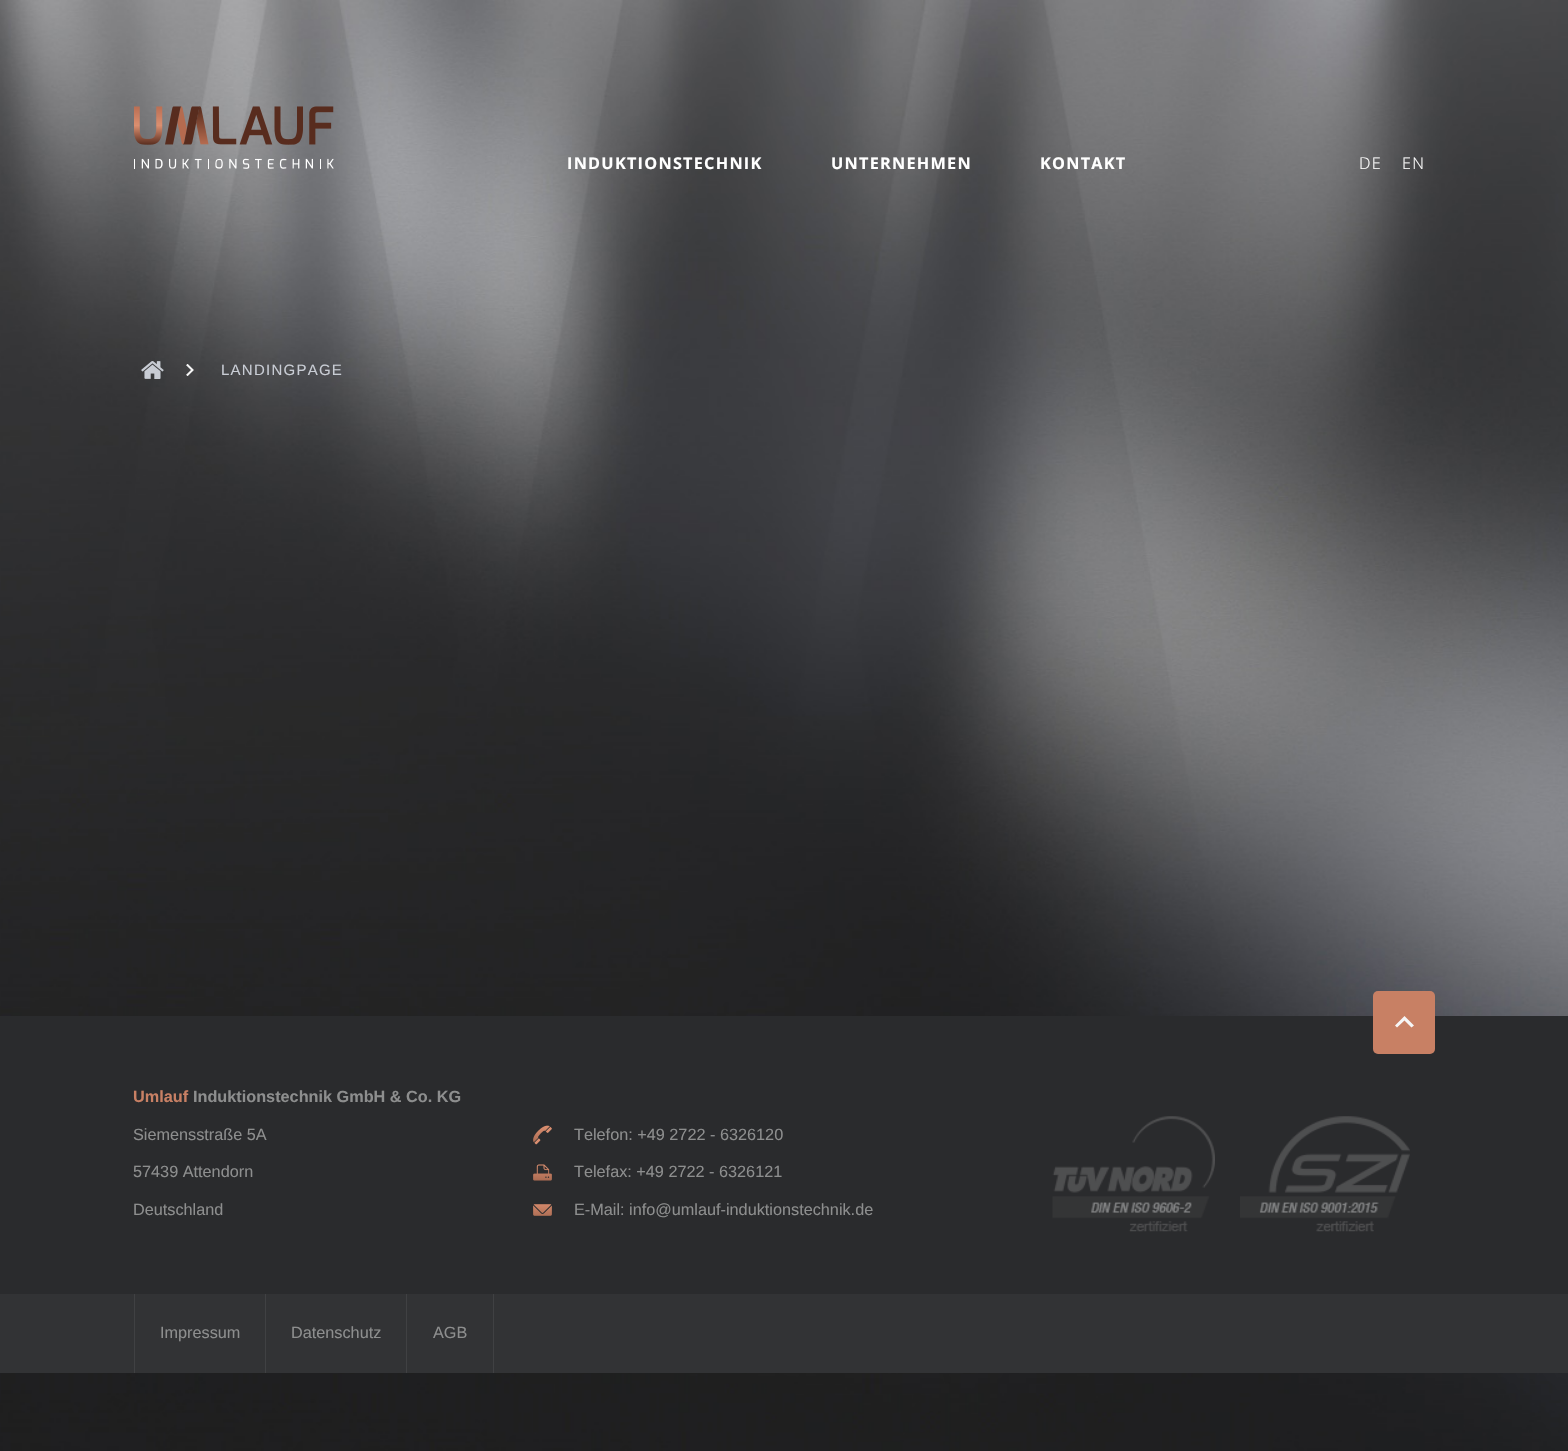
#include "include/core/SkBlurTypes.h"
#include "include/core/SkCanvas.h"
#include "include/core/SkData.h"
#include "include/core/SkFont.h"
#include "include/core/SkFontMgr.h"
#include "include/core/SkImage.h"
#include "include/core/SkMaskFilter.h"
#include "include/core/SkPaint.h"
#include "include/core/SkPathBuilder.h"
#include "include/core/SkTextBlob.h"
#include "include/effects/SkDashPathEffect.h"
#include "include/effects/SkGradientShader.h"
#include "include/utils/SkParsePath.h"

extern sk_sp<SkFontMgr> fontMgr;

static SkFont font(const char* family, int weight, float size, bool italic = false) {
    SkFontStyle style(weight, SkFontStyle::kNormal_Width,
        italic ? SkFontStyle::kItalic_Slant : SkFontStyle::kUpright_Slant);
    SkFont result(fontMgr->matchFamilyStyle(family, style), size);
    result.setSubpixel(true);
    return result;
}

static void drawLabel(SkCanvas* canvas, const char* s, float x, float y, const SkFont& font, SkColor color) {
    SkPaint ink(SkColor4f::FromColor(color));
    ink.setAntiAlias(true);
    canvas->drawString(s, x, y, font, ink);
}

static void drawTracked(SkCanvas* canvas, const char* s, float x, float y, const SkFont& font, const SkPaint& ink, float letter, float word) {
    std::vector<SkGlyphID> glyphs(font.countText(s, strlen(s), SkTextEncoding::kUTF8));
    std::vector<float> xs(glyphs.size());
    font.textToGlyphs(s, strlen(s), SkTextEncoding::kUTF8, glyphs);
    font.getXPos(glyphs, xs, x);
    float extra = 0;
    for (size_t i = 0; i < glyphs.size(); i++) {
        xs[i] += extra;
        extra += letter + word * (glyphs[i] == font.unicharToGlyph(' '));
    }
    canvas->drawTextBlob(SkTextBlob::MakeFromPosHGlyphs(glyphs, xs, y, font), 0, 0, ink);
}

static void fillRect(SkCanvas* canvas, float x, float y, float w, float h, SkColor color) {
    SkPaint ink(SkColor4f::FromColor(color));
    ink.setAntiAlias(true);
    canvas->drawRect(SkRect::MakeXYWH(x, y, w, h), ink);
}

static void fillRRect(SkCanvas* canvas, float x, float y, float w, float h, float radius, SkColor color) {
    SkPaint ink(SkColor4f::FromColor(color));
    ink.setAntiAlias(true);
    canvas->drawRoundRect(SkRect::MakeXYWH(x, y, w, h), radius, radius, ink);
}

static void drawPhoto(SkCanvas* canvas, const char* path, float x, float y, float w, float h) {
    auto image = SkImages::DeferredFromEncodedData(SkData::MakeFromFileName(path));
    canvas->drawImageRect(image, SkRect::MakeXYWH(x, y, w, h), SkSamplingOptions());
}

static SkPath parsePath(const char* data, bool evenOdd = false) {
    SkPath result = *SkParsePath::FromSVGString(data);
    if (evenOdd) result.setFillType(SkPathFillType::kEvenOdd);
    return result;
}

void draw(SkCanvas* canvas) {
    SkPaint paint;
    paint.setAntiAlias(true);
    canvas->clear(0xFFFFFFFF);
    drawPhoto(canvas, "assets/img2.png", 0, 0, 1568, 1451);
    drawPhoto(canvas, "assets/img1.png", 134, 106, 200, 63);
    SkFont font1 = font("Open Sans", 700, 16.25f);
    paint.setColor(0xFFFFFFFF);
    drawTracked(canvas, "INDUKTIONSTECHNIK", 567, 169, font1, paint, 1.25f, 0);
    drawTracked(canvas, "UNTERNEHMEN", 831, 169, font1, paint, 1.25f, 0);
    drawTracked(canvas, "KONTAKT", 1040, 169, font1, paint, 1.25f, 0);
    SkFont font2 = font("Open Sans", 300, 16.25f);
    drawTracked(canvas, "DE", 1359, 169, font2, paint, 1.25f, 0);
    drawTracked(canvas, "EN", 1402, 169, font2, paint, 1.25f, 0);
    drawPhoto(canvas, "assets/img3.png", 141, 361, 23, 18);
    drawPhoto(canvas, "assets/img4.png", 186, 364, 8, 12);
    SkFont font3 = font("Liberation Sans", 400, 15);
    paint.setColor(0xFFC8CCD4);
    drawTracked(canvas, "LANDINGPAGE", 221, 375, font3, paint, 1.25f, 0);
    fillRect(canvas, 0, 1016, 1568, 278, 0xFF2A2B2D);
    fillRRect(canvas, 1373, 991, 62, 63, 5, 0xFFC88064);
    paint.setColor(0xFFF6F6F6);
    canvas->drawPath(parsePath("M1404.5 1020.5L1411.5 1027.5L1414 1025.5L1404.5 1016L1395 1025.5L1397 1027.5Z"), paint);
    SkFont font4 = font("Liberation Sans", 700, 16.25f);
    drawLabel(canvas, "Umlauf", 133, 1102, font4, 0xFFC88064);
    drawLabel(canvas, "Induktionstechnik GmbH & Co. KG", 193, 1102, font4, 0xFF8D8E8E);
    SkFont font5 = font("Liberation Sans", 400, 16.25f);
    drawLabel(canvas, "Siemensstraße 5A", 133, 1140, font5, 0xFF8D8E8E);
    drawLabel(canvas, "57439 Attendorn", 133, 1177, font5, 0xFF8D8E8E);
    drawLabel(canvas, "Deutschland", 133, 1215, font5, 0xFF8D8E8E);
    drawPhoto(canvas, "assets/img5.png", 533, 1125, 19, 20);
    drawLabel(canvas, "Telefon: +49 2722 - 6326120", 574, 1140, font5, 0xFF8D8E8E);
    drawPhoto(canvas, "assets/img6.png", 533, 1164, 19, 17);
    drawLabel(canvas, "Telefax: +49 2722 - 6326121", 574, 1177, font5, 0xFF8D8E8E);
    drawPhoto(canvas, "assets/img7.png", 533, 1204, 19, 12);
    drawLabel(canvas, "E-Mail: info@umlauf-induktionstechnik.de", 574, 1215, font5, 0xFF8D8E8E);
    drawPhoto(canvas, "assets/img8.png", 1052, 1116, 163, 116);
    drawPhoto(canvas, "assets/img9.png", 1240, 1116, 170, 116);
    fillRect(canvas, 0, 1294, 1568, 79, 0xFF323335);
    fillRect(canvas, 134, 1294, 1, 79, 0xFF404143);
    drawLabel(canvas, "Impressum", 160, 1338, font5, 0xFF8D8E8E);
    fillRect(canvas, 265, 1294, 1, 79, 0xFF404143);
    drawLabel(canvas, "Datenschutz", 291, 1338, font5, 0xFF8D8E8E);
    fillRect(canvas, 493, 1294, 1, 79, 0xFF404143);
    fillRect(canvas, 406, 1294, 1, 79, 0xFF404143);
    drawLabel(canvas, "AGB", 433, 1338, font5, 0xFF8D8E8E);
}
